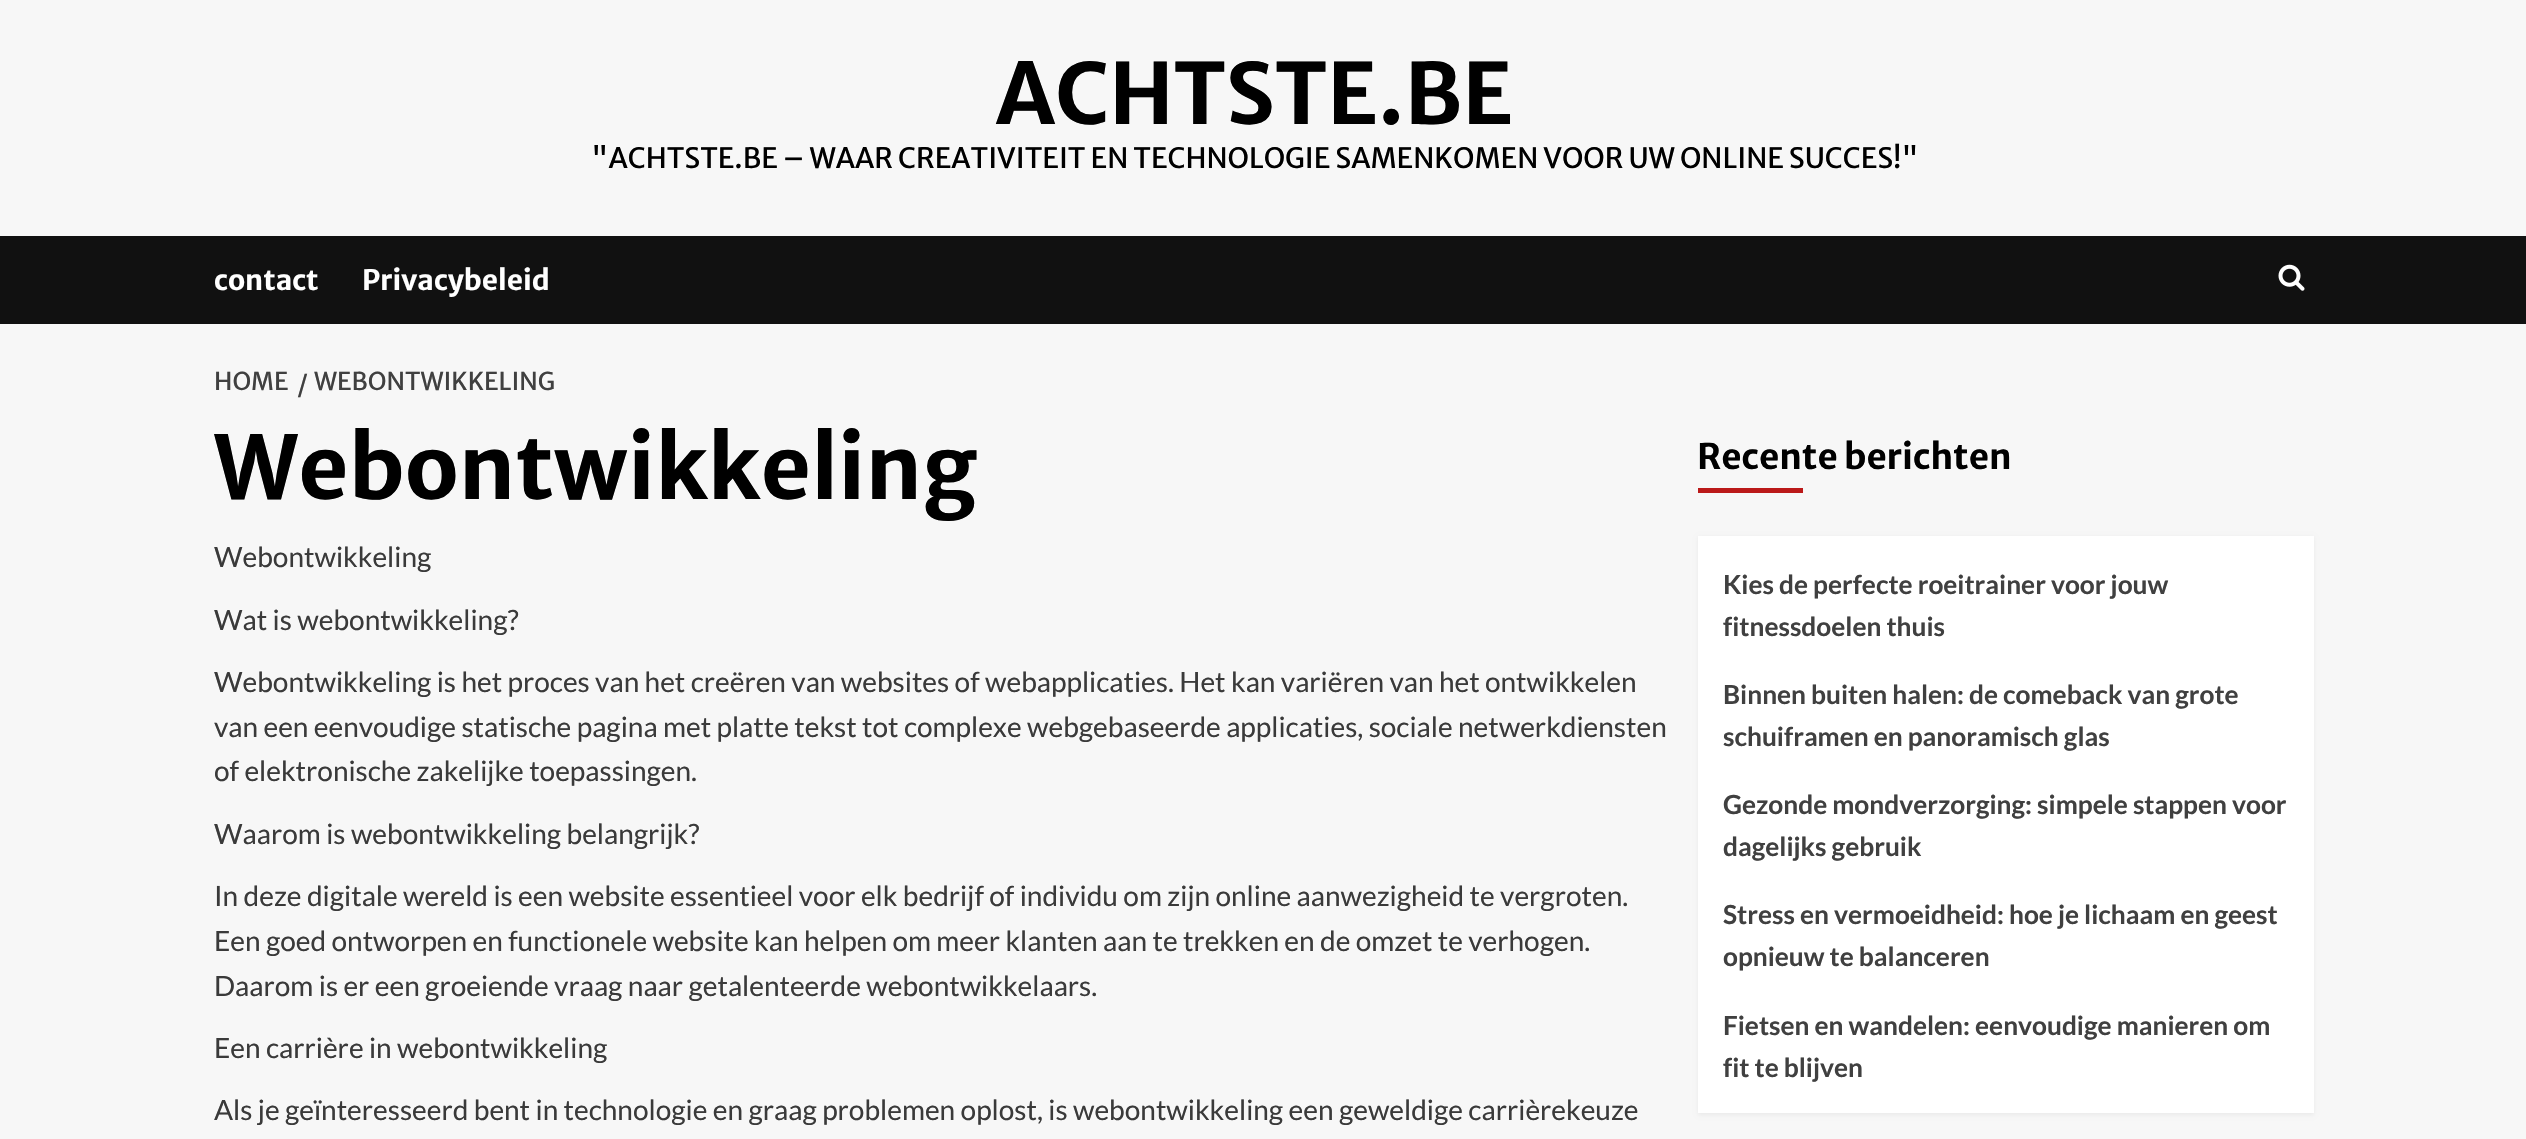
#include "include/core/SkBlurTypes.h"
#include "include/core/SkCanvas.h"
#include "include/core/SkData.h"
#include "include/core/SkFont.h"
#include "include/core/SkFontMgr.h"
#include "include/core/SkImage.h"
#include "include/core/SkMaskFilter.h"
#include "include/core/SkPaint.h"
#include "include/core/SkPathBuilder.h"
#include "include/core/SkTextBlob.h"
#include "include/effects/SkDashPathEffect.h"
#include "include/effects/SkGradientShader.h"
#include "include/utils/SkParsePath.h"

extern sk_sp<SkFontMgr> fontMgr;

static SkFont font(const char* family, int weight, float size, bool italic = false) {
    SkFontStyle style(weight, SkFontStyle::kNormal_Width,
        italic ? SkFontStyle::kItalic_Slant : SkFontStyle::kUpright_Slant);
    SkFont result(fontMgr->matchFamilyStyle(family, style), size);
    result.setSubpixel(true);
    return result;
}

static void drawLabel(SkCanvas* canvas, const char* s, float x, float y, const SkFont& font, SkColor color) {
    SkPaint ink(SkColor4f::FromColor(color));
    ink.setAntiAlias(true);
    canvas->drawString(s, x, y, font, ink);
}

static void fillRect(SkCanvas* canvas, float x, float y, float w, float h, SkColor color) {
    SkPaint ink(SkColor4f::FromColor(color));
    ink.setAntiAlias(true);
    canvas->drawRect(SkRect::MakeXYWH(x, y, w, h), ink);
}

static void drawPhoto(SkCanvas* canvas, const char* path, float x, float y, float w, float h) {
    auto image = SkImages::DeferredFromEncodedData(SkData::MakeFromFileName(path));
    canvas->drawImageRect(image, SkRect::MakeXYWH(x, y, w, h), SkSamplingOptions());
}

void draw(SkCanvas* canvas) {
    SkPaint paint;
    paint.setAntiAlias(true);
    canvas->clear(0xFFF7F7F7);
    SkFont font1 = font("Merriweather Sans", 700, 84);
    drawLabel(canvas, "ACHTSTE.BE", 996, 124, font1, 0xFF000000);
    SkFont font2 = font("Merriweather Sans", 400, 28);
    drawLabel(canvas, "\"ACHTSTE.BE – WAAR CREATIVITEIT EN TECHNOLOGIE SAMENKOMEN VOOR UW ONLINE SUCCES!\"", 591, 168, font2, 0xFF000000);
    fillRect(canvas, 0, 236, 2526, 88, 0xFF111111);
    SkFont font3 = font("Merriweather Sans", 700, 28);
    drawLabel(canvas, "contact", 214, 290, font3, 0xFFFFFFFF);
    drawLabel(canvas, "Privacybeleid", 362, 290, font3, 0xFFFFFFFF);
    drawPhoto(canvas, "assets/img1.png", 2278, 264, 27, 27);
    SkFont font4 = font("Merriweather Sans", 400, 24.5f);
    drawLabel(canvas, "HOME", 214, 390, font4, 0xFF404040);
    drawLabel(canvas, "/", 297, 393, font4, 0xFF404040);
    drawLabel(canvas, "WEBONTWIKKELING", 314, 390, font4, 0xFF404040);
    SkFont font5 = font("Merriweather Sans", 700, 87.5f);
    drawLabel(canvas, "Webontwikkeling", 214, 499, font5, 0xFF000000);
    SkFont font6 = font("Lato", 400, 28);
    drawLabel(canvas, "Webontwikkeling", 214, 567, font6, 0xFF3A3A3A);
    drawLabel(canvas, "Wat is webontwikkeling?", 214, 630, font6, 0xFF3A3A3A);
    drawLabel(canvas, "Webontwikkeling is het proces van het creëren van websites of webapplicaties. Het kan variëren van het ontwikkelen", 214, 692, font6, 0xFF3A3A3A);
    drawLabel(canvas, "van een eenvoudige statische pagina met platte tekst tot complexe webgebaseerde applicaties, sociale netwerkdiensten", 214, 737, font6, 0xFF3A3A3A);
    drawLabel(canvas, "of elektronische zakelijke toepassingen.", 214, 781, font6, 0xFF3A3A3A);
    drawLabel(canvas, "Waarom is webontwikkeling belangrijk?", 214, 844, font6, 0xFF3A3A3A);
    drawLabel(canvas, "In deze digitale wereld is een website essentieel voor elk bedrijf of individu om zijn online aanwezigheid te vergroten.", 214, 906, font6, 0xFF3A3A3A);
    drawLabel(canvas, "Een goed ontworpen en functionele website kan helpen om meer klanten aan te trekken en de omzet te verhogen.", 214, 951, font6, 0xFF3A3A3A);
    drawLabel(canvas, "Daarom is er een groeiende vraag naar getalenteerde webontwikkelaars.", 214, 996, font6, 0xFF3A3A3A);
    drawLabel(canvas, "Een carrière in webontwikkeling", 214, 1058, font6, 0xFF3A3A3A);
    drawLabel(canvas, "Als je geïnteresseerd bent in technologie en graag problemen oplost, is webontwikkeling een geweldige carrièrekeuze", 214, 1120, font6, 0xFF3A3A3A);
    SkFont font7 = font("Merriweather Sans", 700, 35);
    drawLabel(canvas, "Recente berichten", 1697, 469, font7, 0xFF000000);
    fillRect(canvas, 1698, 488, 105, 5, 0xFFBB1919);
    paint.setColor(0x0D000000);
    paint.setMaskFilter(SkMaskFilter::MakeBlur(kNormal_SkBlurStyle, 2));
    canvas->drawRect(SkRect::MakeXYWH(1698, 537, 616, 578), paint);
    paint.setMaskFilter(nullptr);
    fillRect(canvas, 1698, 536, 616, 577, 0xFFFFFFFF);
    SkFont font8 = font("Lato", 700, 26.25f);
    drawLabel(canvas, "Kies de perfecte roeitrainer voor jouw", 1723, 594, font8, 0xFF404040);
    drawLabel(canvas, "fitnessdoelen thuis", 1723, 636, font8, 0xFF404040);
    drawLabel(canvas, "Binnen buiten halen: de comeback van grote", 1723, 704, font8, 0xFF404040);
    drawLabel(canvas, "schuiframen en panoramisch glas", 1723, 746, font8, 0xFF404040);
    drawLabel(canvas, "Gezonde mondverzorging: simpele stappen voor", 1723, 814, font8, 0xFF404040);
    drawLabel(canvas, "dagelijks gebruik", 1723, 856, font8, 0xFF404040);
    drawLabel(canvas, "Stress en vermoeidheid: hoe je lichaam en geest", 1723, 924, font8, 0xFF404040);
    drawLabel(canvas, "opnieuw te balanceren", 1723, 966, font8, 0xFF404040);
    drawLabel(canvas, "Fietsen en wandelen: eenvoudige manieren om", 1723, 1035, font8, 0xFF404040);
    drawLabel(canvas, "fit te blijven", 1723, 1077, font8, 0xFF404040);
}
